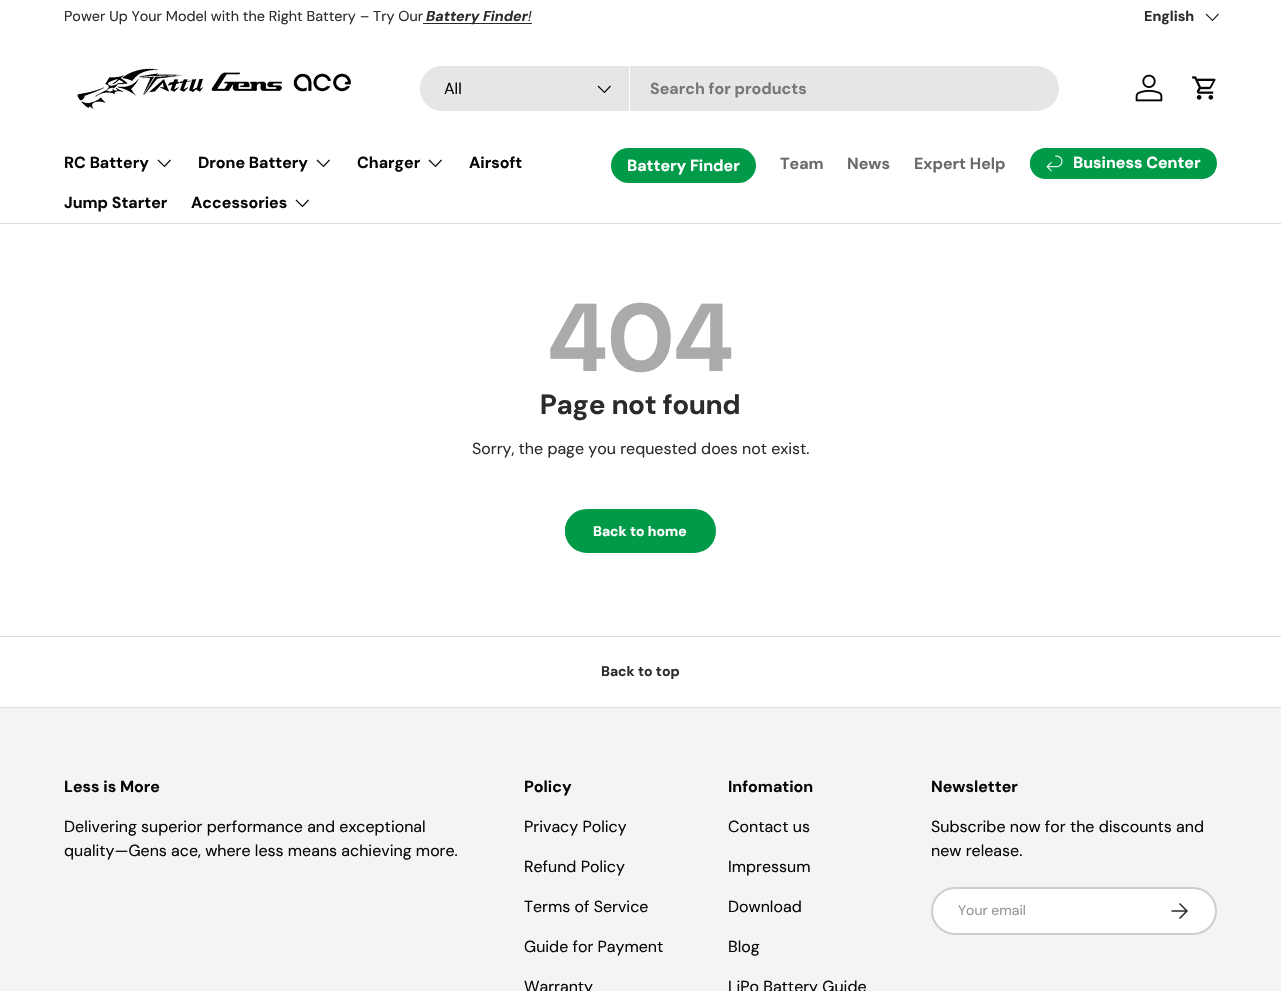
#include "include/core/SkBlurTypes.h"
#include "include/core/SkCanvas.h"
#include "include/core/SkData.h"
#include "include/core/SkFont.h"
#include "include/core/SkFontMgr.h"
#include "include/core/SkImage.h"
#include "include/core/SkMaskFilter.h"
#include "include/core/SkPaint.h"
#include "include/core/SkPathBuilder.h"
#include "include/core/SkTextBlob.h"
#include "include/effects/SkDashPathEffect.h"
#include "include/effects/SkGradientShader.h"
#include "include/utils/SkParsePath.h"

extern sk_sp<SkFontMgr> fontMgr;

static SkFont font(const char* family, int weight, float size, bool italic = false) {
    SkFontStyle style(weight, SkFontStyle::kNormal_Width,
        italic ? SkFontStyle::kItalic_Slant : SkFontStyle::kUpright_Slant);
    SkFont result(fontMgr->matchFamilyStyle(family, style), size);
    result.setSubpixel(true);
    return result;
}

static void drawLabel(SkCanvas* canvas, const char* s, float x, float y, const SkFont& font, SkColor color) {
    SkPaint ink(SkColor4f::FromColor(color));
    ink.setAntiAlias(true);
    canvas->drawString(s, x, y, font, ink);
}

static void fillRect(SkCanvas* canvas, float x, float y, float w, float h, SkColor color) {
    SkPaint ink(SkColor4f::FromColor(color));
    ink.setAntiAlias(true);
    canvas->drawRect(SkRect::MakeXYWH(x, y, w, h), ink);
}

static void fillRRect(SkCanvas* canvas, float x, float y, float w, float h, float radius, SkColor color) {
    SkPaint ink(SkColor4f::FromColor(color));
    ink.setAntiAlias(true);
    canvas->drawRoundRect(SkRect::MakeXYWH(x, y, w, h), radius, radius, ink);
}

static void drawPhoto(SkCanvas* canvas, const char* path, float x, float y, float w, float h) {
    auto image = SkImages::DeferredFromEncodedData(SkData::MakeFromFileName(path));
    canvas->drawImageRect(image, SkRect::MakeXYWH(x, y, w, h), SkSamplingOptions());
}

static SkPath parsePath(const char* data, bool evenOdd = false) {
    SkPath result = *SkParsePath::FromSVGString(data);
    if (evenOdd) result.setFillType(SkPathFillType::kEvenOdd);
    return result;
}

void draw(SkCanvas* canvas) {
    SkPaint paint;
    paint.setAntiAlias(true);
    canvas->clear(0xFFFFFFFF);
    SkFont font1 = font("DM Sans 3", 400, 14.4f);
    drawLabel(canvas, "Power Up Your Model with the Right Battery – Try Our", 64, 21, font1, 0xFF2A2B2A);
    fillRect(canvas, 423, 23, 105, 1, 0xFF2A2B2A);
    SkFont font2 = font("DM Sans", 700, 14.4f, true);
    drawLabel(canvas, "Battery Finder", 426, 21, font2, 0xFF2A2B2A);
    fillRect(canvas, 528, 23, 4, 1, 0xFF2A2B2A);
    SkFont font3 = font("DM Sans", 400, 14.4f, true);
    drawLabel(canvas, "!", 528, 21, font3, 0xFF2A2B2A);
    SkFont font4 = font("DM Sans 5", 700, 14.4f);
    drawLabel(canvas, "English", 1144, 21, font4, 0xFF2A2B2A);
    paint.setStroke(true);
    paint.setStrokeWidth(1.2f);
    paint.setColor(0xFF2A2B2A);
    canvas->drawPath(parsePath("M1218.5 14L1212.5 20.5L1206 14"), paint);
    fillRect(canvas, 0, 223, 1281, 1, 0xFFDADADA);
    drawPhoto(canvas, "assets/img1.png", 77, 68, 274, 42);
    fillRRect(canvas, 420, 66, 639, 45, 22.5f, 0xFFE6E6E6);
    paint.setStroke(false);
    paint.setColor(0xFFE6E6E6);
    canvas->drawPath(parsePath("M442.5 66H630V111H442.5C430 111 420 101 420 88.5C420 76 430 66 442.5 66Z"), paint);
    fillRect(canvas, 629, 66, 1, 45, 0xFFFFFFFF);
    SkFont font5 = font("DM Sans", 400, 16);
    drawLabel(canvas, "All", 444, 94, font5, 0xFF070707);
    paint.setStroke(true);
    paint.setColor(0xFF070707);
    canvas->drawPath(parsePath("M610.5 86L604.5 92.5L598 86"), paint);
    SkFont font6 = font("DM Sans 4", 700, 16);
    drawLabel(canvas, "Search for products", 650, 94, font6, 0xFF777777);
    drawPhoto(canvas, "assets/img2.png", 1135, 74, 28, 28);
    drawPhoto(canvas, "assets/img3.png", 1192, 76, 24, 24);
    drawLabel(canvas, "RC Battery", 64, 168, font6, 0xFF070707);
    canvas->drawPath(parsePath("M170.5 160L164.5 166.5L158 160"), paint);
    drawLabel(canvas, "Drone Battery", 198, 168, font6, 0xFF070707);
    canvas->drawPath(parsePath("M329.5 160L323.5 166.5L317 160"), paint);
    drawLabel(canvas, "Charger", 357, 168, font6, 0xFF070707);
    canvas->drawPath(parsePath("M441.5 160L435.5 166.5L429 160"), paint);
    drawLabel(canvas, "Airsoft", 469, 168, font6, 0xFF070707);
    drawLabel(canvas, "Jump Starter", 64, 208, font6, 0xFF070707);
    drawLabel(canvas, "Accessories", 191, 208, font6, 0xFF070707);
    canvas->drawPath(parsePath("M308.5 200L302.5 206.5L296 200"), paint);
    fillRRect(canvas, 611, 148, 145, 35, 17.5f, 0xFF009A49);
    drawLabel(canvas, "Battery Finder", 627, 171, font6, 0xFFFFFFFF);
    drawLabel(canvas, "Team", 780, 169, font6, 0xFF6A6A6A);
    drawLabel(canvas, "News", 847, 169, font6, 0xFF6A6A6A);
    drawLabel(canvas, "Expert Help", 914, 169, font6, 0xFF6A6A6A);
    canvas->save();
    canvas->clipPath(parsePath("M1045.5 148H1201.5C1210 148 1217 155 1217 163.5C1217 172 1210 179 1201.5 179H1045.5C1037 179 1030 172 1030 163.5C1030 155 1037 148 1045.5 148Z"), true);
    paint.setStroke(false);
    {
        const SkColor colors[] = {0xFF29B56B, 0xFF009A49, 0xFF009A49};
        const float stops[] = {0.6f, 0.6f, 1};
        const SkPoint ends[] = {{679, 98}, {1202, 229}};
        paint.setShader(SkGradientShader::MakeLinear(ends, colors, stops, 3, SkTileMode::kClamp));
        paint.setAlpha(255);
    }
    canvas->drawRect(SkRect::MakeXYWH(1030, 150, 185, 27), paint);
    canvas->restore();
    paint.setStroke(true);
    paint.setStrokeWidth(2);
    paint.setShader(nullptr);
    paint.setColor(0xFF009A49);
    canvas->drawRoundRect(SkRect::MakeXYWH(1031, 149, 185, 29), 14.5f, 14.5f, paint);
    drawPhoto(canvas, "assets/img4.png", 1046, 155, 17, 17);
    drawLabel(canvas, "Business Center", 1073, 168, font6, 0xFFFFFFFF);
    SkFont font7 = font("DM Sans", 700, 96);
    drawLabel(canvas, "404", 548, 371, font7, 0xFFAAAAAA);
    SkFont font8 = font("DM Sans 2", 700, 27.75f);
    drawLabel(canvas, "Page not found", 540, 414, font8, 0xFF2A2B2A);
    drawLabel(canvas, "Sorry, the page you requested does not exist.", 472, 454, font5, 0xFF2A2B2A);
    canvas->save();
    canvas->clipPath(parsePath("M587 509H694C706 509 716 519 716 531C716 543 706 553 694 553H587C575 553 565 543 565 531C565 519 575 509 587 509Z"), true);
    paint.setStroke(false);
    {
        const SkColor colors[] = {0xFF29B56B, 0xFF009A49, 0xFF009A49};
        const float stops[] = {0.6f, 0.6f, 1};
        const SkPoint ends[] = {{281, 478}, {706, 584}};
        paint.setShader(SkGradientShader::MakeLinear(ends, colors, stops, 3, SkTileMode::kClamp));
        paint.setAlpha(255);
    }
    canvas->drawRect(SkRect::MakeXYWH(565, 511, 149, 40), paint);
    canvas->restore();
    paint.setStroke(true);
    paint.setShader(nullptr);
    paint.setColor(0xFF009A49);
    canvas->drawRoundRect(SkRect::MakeXYWH(566, 510, 149, 42), 21, 21, paint);
    SkFont font9 = font("DM Sans 3", 700, 14);
    drawLabel(canvas, "Back to home", 593, 536, font9, 0xFFFFFFFF);
    fillRect(canvas, 0, 636, 1281, 1, 0xFFDFDFDF);
    fillRect(canvas, 0, 707, 1281, 1, 0xFFDFDFDF);
    drawLabel(canvas, "Back to top", 601, 676, font9, 0xFF2A2B2A);
    fillRect(canvas, 0, 708, 1281, 283, 0xFFF4F4F4);
    drawLabel(canvas, "Less is More", 64, 792, font6, 0xFF070707);
    drawLabel(canvas, "Delivering superior performance and exceptional", 64, 832, font5, 0xFF070707);
    drawLabel(canvas, "quality—Gens ace, where less means achieving more.", 64, 856, font5, 0xFF070707);
    drawLabel(canvas, "Policy", 524, 792, font6, 0xFF070707);
    drawLabel(canvas, "Privacy Policy", 524, 832, font5, 0xFF070707);
    drawLabel(canvas, "Refund Policy", 524, 872, font5, 0xFF070707);
    drawLabel(canvas, "Terms of Service", 524, 912, font5, 0xFF070707);
    drawLabel(canvas, "Guide for Payment", 524, 952, font5, 0xFF070707);
    drawLabel(canvas, "Warranty", 524, 992, font5, 0xFF070707);
    drawLabel(canvas, "Infomation", 728, 792, font6, 0xFF070707);
    drawLabel(canvas, "Contact us", 728, 832, font5, 0xFF070707);
    drawLabel(canvas, "Impressum", 728, 872, font5, 0xFF070707);
    drawLabel(canvas, "Download", 728, 912, font5, 0xFF070707);
    drawLabel(canvas, "Blog", 728, 952, font5, 0xFF070707);
    drawLabel(canvas, "LiPo Battery Guide", 728, 992, font5, 0xFF070707);
    drawLabel(canvas, "Newsletter", 931, 792, font6, 0xFF070707);
    drawLabel(canvas, "Subscribe now for the discounts and", 931, 832, font5, 0xFF070707);
    drawLabel(canvas, "new release.", 931, 856, font5, 0xFF070707);
    fillRRect(canvas, 931, 887, 286, 48, 24, 0xFFFFFFFF);
    paint.setColor(0x33070707);
    canvas->drawRoundRect(SkRect::MakeXYWH(932, 888, 284, 46), 23, 23, paint);
    SkFont font10 = font("DM Sans 2", 400, 14);
    drawLabel(canvas, "Your email", 958, 915, font10, 0xFF959595);
    paint.setStrokeWidth(1.5f);
    paint.setColor(0xFF2A2B2A);
    canvas->drawPath(parsePath("M1171.5 911H1186.5M1179.5 903.5L1187 911L1179.5 918.5"), paint);
}
